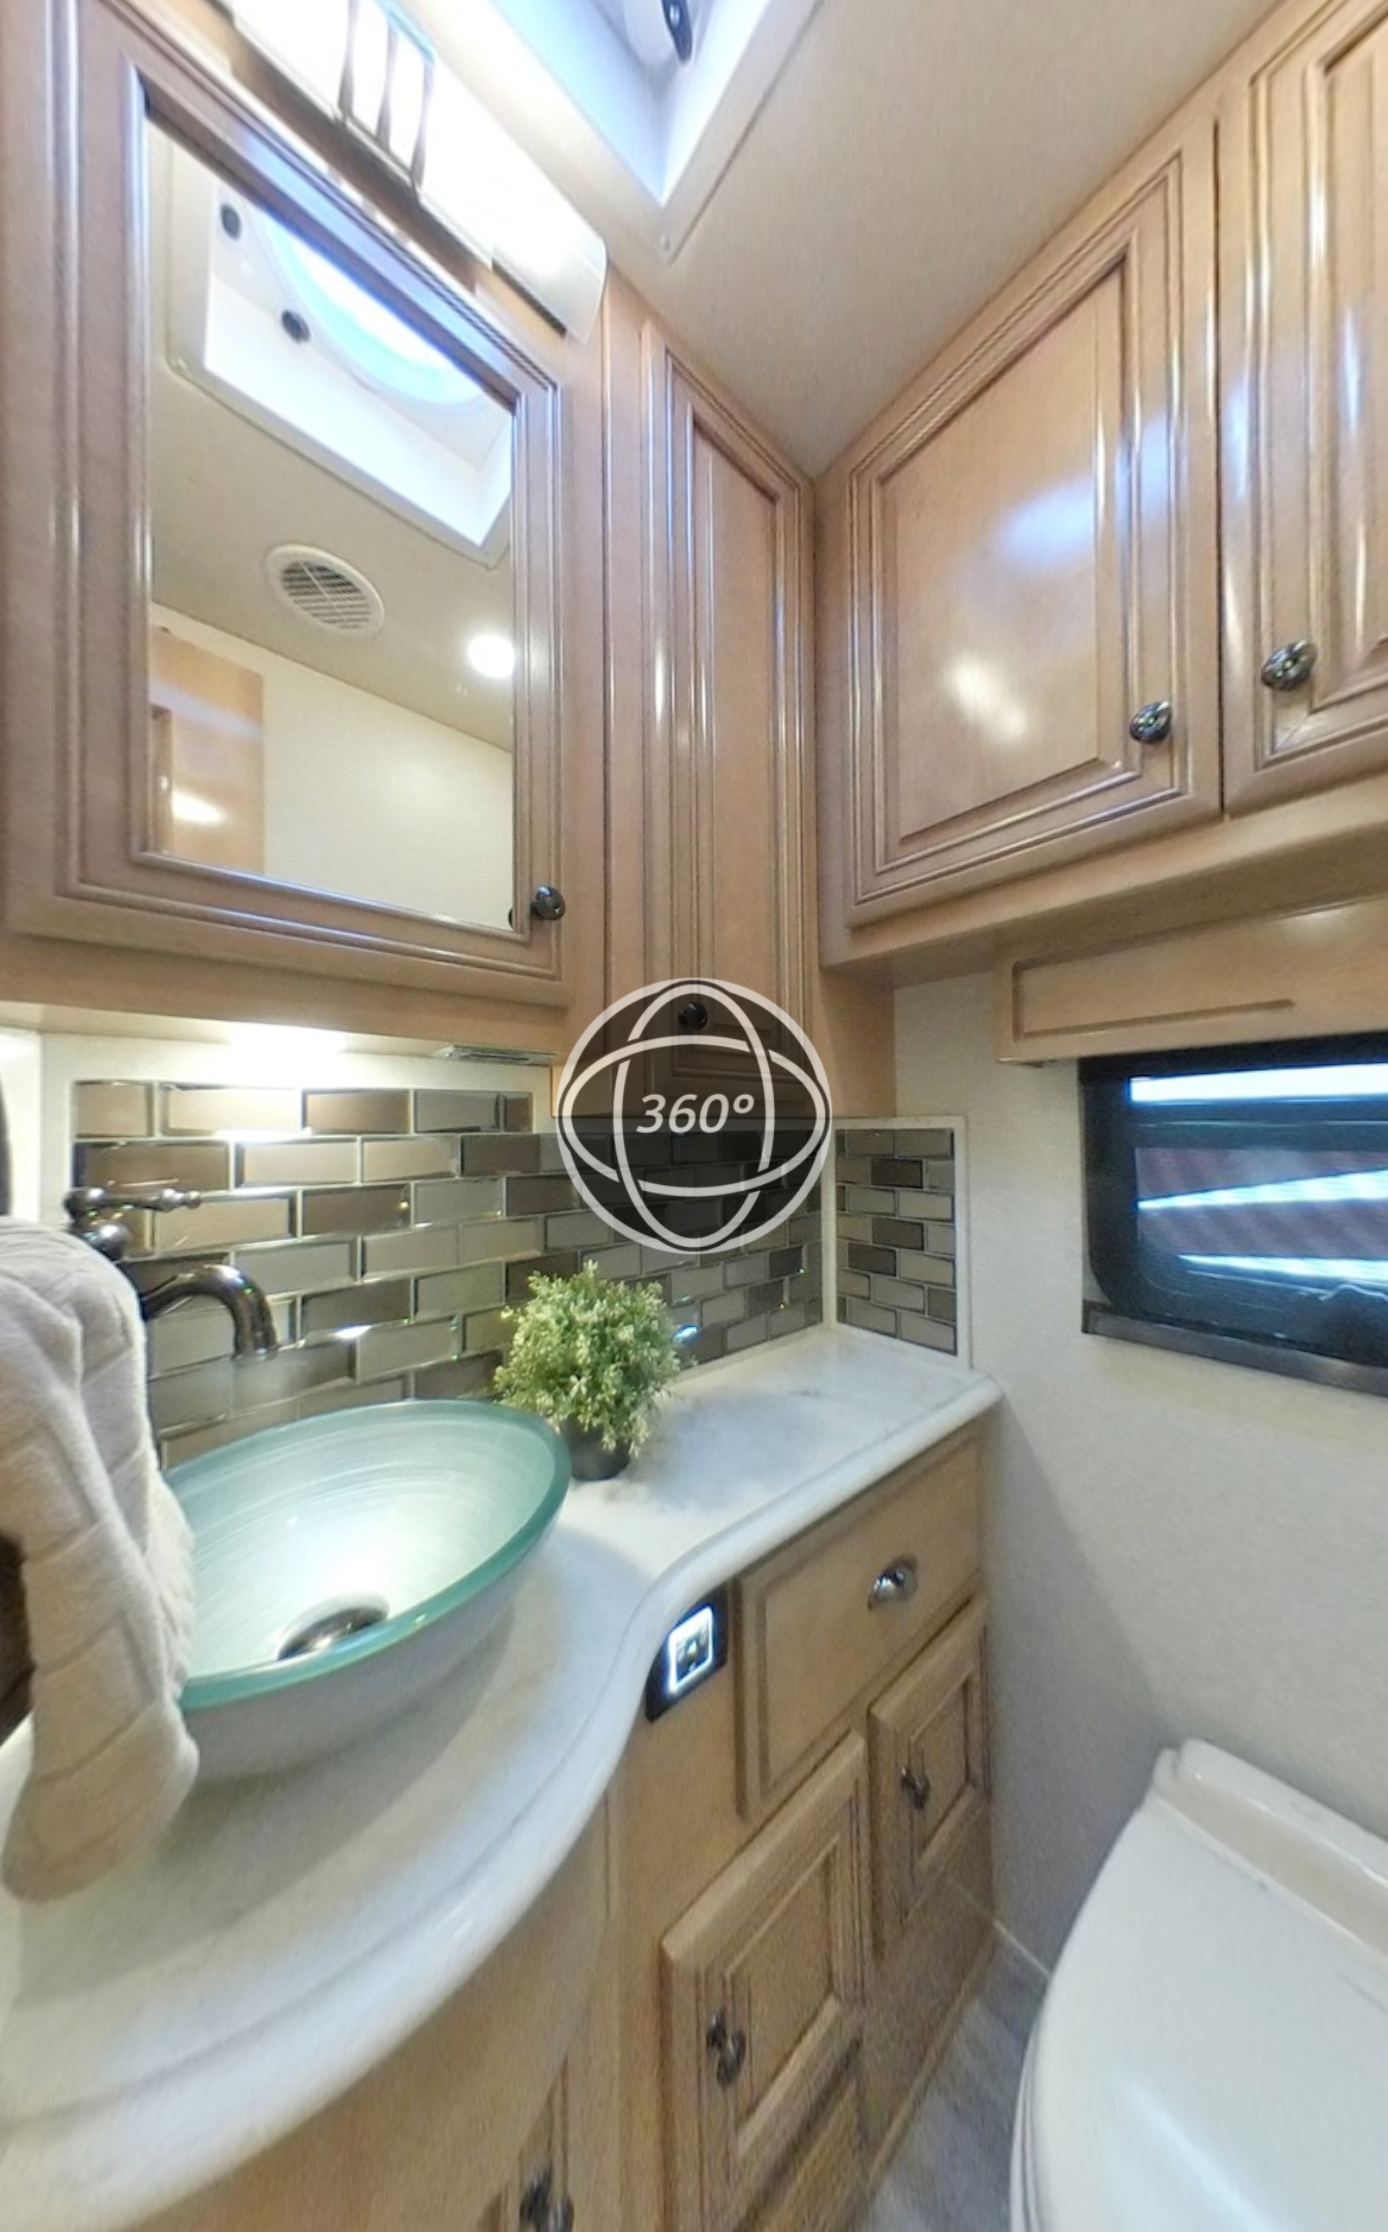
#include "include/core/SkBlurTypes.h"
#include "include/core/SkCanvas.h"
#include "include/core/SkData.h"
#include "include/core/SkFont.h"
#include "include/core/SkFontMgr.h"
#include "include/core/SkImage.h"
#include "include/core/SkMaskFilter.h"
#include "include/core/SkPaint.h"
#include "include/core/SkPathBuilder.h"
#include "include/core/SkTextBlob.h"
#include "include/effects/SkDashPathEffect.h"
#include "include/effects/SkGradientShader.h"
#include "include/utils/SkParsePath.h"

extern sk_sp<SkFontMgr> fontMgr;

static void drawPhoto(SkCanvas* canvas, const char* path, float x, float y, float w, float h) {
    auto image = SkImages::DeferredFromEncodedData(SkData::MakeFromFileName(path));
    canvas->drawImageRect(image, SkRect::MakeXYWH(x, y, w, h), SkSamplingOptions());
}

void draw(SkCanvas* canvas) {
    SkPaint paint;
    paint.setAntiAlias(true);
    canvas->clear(0xFFFFFFFF);
    drawPhoto(canvas, "assets/img1.png", 0, 0, 1388, 2232);
    drawPhoto(canvas, "assets/img2.png", 555, 977, 278, 278);
}
